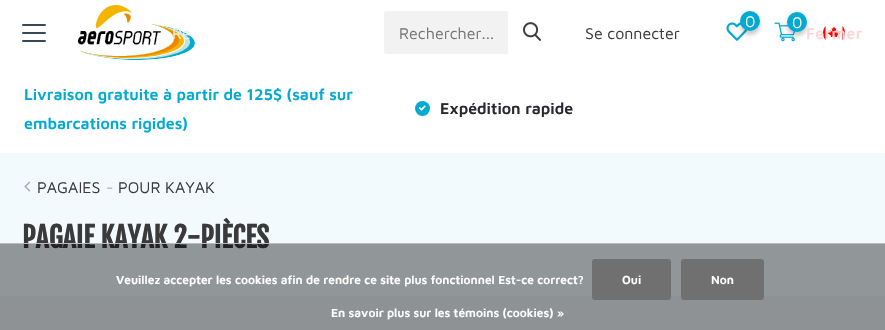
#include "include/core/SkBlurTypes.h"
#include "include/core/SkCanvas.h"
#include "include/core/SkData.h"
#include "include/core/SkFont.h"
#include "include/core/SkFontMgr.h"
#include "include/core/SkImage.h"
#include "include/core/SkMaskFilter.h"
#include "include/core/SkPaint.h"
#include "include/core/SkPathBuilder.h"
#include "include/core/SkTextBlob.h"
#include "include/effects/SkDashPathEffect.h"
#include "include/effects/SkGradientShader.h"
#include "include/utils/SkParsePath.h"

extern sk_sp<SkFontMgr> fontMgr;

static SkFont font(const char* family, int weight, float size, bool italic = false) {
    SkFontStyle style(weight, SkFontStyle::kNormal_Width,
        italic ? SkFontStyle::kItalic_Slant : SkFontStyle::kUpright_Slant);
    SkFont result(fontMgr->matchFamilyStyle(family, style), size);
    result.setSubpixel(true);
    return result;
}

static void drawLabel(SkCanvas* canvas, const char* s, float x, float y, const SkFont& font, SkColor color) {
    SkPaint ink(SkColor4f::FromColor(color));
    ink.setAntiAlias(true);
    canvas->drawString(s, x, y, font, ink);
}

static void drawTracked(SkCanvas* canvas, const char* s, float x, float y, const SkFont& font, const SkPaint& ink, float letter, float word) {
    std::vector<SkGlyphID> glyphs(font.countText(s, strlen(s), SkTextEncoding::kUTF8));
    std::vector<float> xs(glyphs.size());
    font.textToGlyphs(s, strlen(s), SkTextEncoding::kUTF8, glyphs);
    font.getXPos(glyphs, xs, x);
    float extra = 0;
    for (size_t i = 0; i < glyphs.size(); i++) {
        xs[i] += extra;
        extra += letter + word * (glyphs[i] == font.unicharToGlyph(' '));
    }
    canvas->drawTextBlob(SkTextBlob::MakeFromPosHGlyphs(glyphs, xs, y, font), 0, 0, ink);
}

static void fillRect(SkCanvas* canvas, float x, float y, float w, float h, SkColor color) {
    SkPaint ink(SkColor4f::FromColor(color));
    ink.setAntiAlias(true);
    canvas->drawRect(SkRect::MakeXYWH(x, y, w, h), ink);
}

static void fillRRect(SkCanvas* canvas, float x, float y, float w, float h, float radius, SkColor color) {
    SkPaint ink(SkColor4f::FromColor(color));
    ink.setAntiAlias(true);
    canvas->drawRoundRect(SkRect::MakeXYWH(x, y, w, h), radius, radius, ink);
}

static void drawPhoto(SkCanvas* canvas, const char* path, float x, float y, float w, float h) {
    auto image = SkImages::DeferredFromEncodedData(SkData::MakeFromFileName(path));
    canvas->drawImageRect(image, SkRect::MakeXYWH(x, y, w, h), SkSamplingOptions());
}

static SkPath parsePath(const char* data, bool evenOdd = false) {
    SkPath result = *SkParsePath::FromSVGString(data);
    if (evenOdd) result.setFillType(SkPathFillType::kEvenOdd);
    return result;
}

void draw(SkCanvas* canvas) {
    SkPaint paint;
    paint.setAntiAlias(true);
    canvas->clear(0xFFFFFFFF);
    fillRRect(canvas, 22, 24, 24, 2, 1, 0xFF394A54);
    fillRRect(canvas, 22, 32, 24, 2, 1, 0xFF394A54);
    fillRRect(canvas, 22, 40, 24, 2, 1, 0xFF394A54);
    drawPhoto(canvas, "assets/img1.png", 78, 5, 117, 55);
    drawPhoto(canvas, "assets/img2.png", 726, 22, 21, 19);
    paint.setColor(0x40282830);
    paint.setMaskFilter(SkMaskFilter::MakeBlur(kNormal_SkBlurStyle, 2));
    canvas->drawRoundRect(SkRect::MakeXYWH(740, 15, 20, 20), 10, 10, paint);
    paint.setMaskFilter(nullptr);
    paint.setColor(0xFF00AAD2);
    canvas->drawCircle(750, 21, 10, paint);
    SkFont font1 = font("Maven Pro", 400, 16);
    drawLabel(canvas, "0", 745, 27, font1, 0xFFFFFFFF);
    drawPhoto(canvas, "assets/img3.png", 774, 22, 21, 20);
    paint.setColor(0x40282830);
    paint.setMaskFilter(SkMaskFilter::MakeBlur(kNormal_SkBlurStyle, 2));
    canvas->drawRoundRect(SkRect::MakeXYWH(787, 16, 20, 20), 10, 10, paint);
    paint.setMaskFilter(nullptr);
    paint.setColor(0xFF00AAD2);
    canvas->drawCircle(797, 22, 10, paint);
    drawLabel(canvas, "0", 792, 28, font1, 0xFFFFFFFF);
    paint.setColor(0xFFF2F2F2);
    canvas->drawPath(parsePath("M387 10H508V55H387C385 55 383 53 383 51V14C383 12 385 10 387 10Z"), paint);
    paint.setColor(0xFFFFFFFF);
    canvas->drawPath(parsePath("M387 10H508V55H387C385 55 383 53 383 51V14C383 12 385 10 387 10ZM387 11H508V54H387C385 54 384 53 384 51V14C384 12 385 11 387 11Z", true), paint);
    drawLabel(canvas, "Rechercher...", 399, 39, font1, 0xFF757575);
    drawPhoto(canvas, "assets/img4.png", 523, 22, 19, 19);
    drawLabel(canvas, "Se connecter", 585, 39, font1, 0xFF3A3A3A);
    drawPhoto(canvas, "assets/img5.png", 823, 25, 22, 16);
    drawLabel(canvas, "Re", 172, 39, font1, 0xFFF0F2E7);
    SkFont font2 = font("Maven Pro", 500, 16);
    paint.setColor(0xFFFFD3D3);
    drawTracked(canvas, "Fermer", 806, 39, font2, paint, 0.5f, 0);
    SkFont font3 = font("Maven Pro", 600, 16);
    drawLabel(canvas, "Livraison gratuite à partir de 125$ (sauf sur", 24, 100, font3, 0xFF00AAD2);
    drawLabel(canvas, "embarcations rigides)", 24, 129, font3, 0xFF00AAD2);
    paint.setColor(0xFF00AAD2);
    canvas->drawCircle(422.5f, 108.5f, 7.5f, paint);
    drawPhoto(canvas, "assets/img6.png", 418, 105, 8, 6);
    drawLabel(canvas, "Expédition rapide", 440, 114, font3, 0xFF282830);
    fillRect(canvas, 0, 153, 885, 143, 0xFFF2FAFE);
    drawPhoto(canvas, "assets/img7.png", 24, 181, 7, 11);
    drawLabel(canvas, "PAGAIES", 37, 193, font1, 0xFF3A3A3A);
    drawLabel(canvas, "-", 106, 193, font1, 0xFFADADBA);
    drawLabel(canvas, "POUR KAYAK", 118, 193, font1, 0xFF3A3A3A);
    SkFont font4 = font("Fjalla One", 700, 28);
    drawLabel(canvas, "PAGAIE KAYAK 2-PIÈCES", 22, 248, font4, 0xFF3A3A3A);
    fillRect(canvas, 0, 296, 885, 34, 0xFFECF4F9);
    fillRect(canvas, 0, 244, 885, 86, 0x66000000);
    fillRect(canvas, 0, 243, 885, 1, 0xFFBBBBBB);
    SkFont font5 = font("Maven Pro", 600, 12);
    drawLabel(canvas, "Veuillez accepter les cookies afin de rendre ce site plus fonctionnel Est-ce correct?", 116, 284, font5, 0xFFFFFFFF);
    fillRRect(canvas, 592, 259, 79, 41, 3, 0xFF707070);
    drawLabel(canvas, "Oui", 622, 284, font5, 0xFFFFFFFF);
    fillRRect(canvas, 681, 259, 83, 41, 3, 0xFF707070);
    drawLabel(canvas, "Non", 711, 284, font5, 0xFFFFFFFF);
    drawLabel(canvas, "En savoir plus sur les témoins (cookies) »", 331, 317, font5, 0xFFFFFFFF);
}
